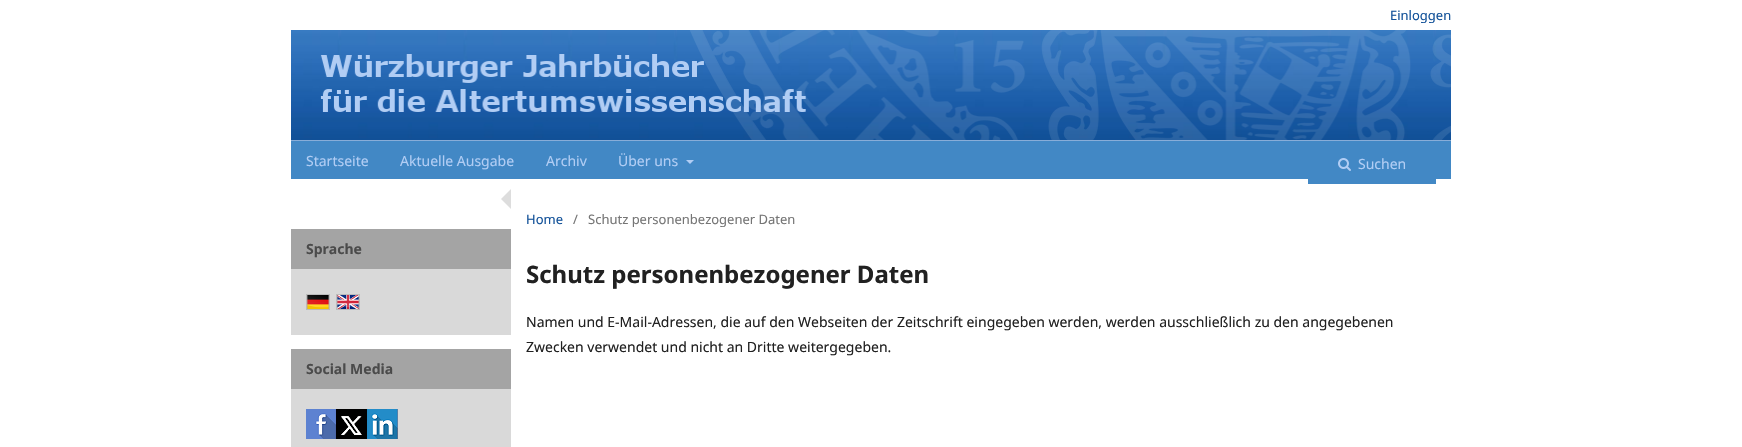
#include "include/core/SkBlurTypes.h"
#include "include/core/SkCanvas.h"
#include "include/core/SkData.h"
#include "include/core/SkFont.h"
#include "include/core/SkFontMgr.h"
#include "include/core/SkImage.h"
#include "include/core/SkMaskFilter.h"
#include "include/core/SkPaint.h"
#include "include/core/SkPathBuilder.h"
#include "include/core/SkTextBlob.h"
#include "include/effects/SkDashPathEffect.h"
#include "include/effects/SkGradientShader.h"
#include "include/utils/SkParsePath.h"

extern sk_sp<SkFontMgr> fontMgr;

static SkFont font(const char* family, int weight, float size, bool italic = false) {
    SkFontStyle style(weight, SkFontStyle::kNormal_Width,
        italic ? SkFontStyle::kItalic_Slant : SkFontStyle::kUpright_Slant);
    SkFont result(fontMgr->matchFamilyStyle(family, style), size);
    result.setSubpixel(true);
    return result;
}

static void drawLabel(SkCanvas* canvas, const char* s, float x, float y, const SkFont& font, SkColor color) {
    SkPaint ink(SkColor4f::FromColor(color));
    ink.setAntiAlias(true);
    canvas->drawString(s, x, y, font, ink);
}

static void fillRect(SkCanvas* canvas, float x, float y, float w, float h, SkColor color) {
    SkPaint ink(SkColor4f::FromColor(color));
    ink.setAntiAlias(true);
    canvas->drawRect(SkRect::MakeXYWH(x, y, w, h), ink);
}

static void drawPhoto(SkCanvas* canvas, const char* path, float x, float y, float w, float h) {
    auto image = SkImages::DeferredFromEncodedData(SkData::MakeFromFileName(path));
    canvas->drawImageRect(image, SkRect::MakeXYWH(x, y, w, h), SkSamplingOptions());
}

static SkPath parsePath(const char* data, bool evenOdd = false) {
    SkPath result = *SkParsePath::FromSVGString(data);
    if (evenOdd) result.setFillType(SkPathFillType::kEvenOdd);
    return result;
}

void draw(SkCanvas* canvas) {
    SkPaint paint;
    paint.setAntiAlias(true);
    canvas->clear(0xFFFFFFFF);
    SkFont font1 = font("Noto Sans", 400, 13);
    drawLabel(canvas, "Einloggen", 1390, 20, font1, 0xFF135299);
    fillRect(canvas, 291, 141, 1160, 38, 0xFF4288C5);
    fillRect(canvas, 291, 140, 1160, 1, 0xFF88ADD8);
    SkFont font2 = font("Noto Sans", 400, 14);
    drawLabel(canvas, "Startseite", 306, 166, font2, 0xFFB1CDF4);
    drawLabel(canvas, "Aktuelle Ausgabe", 400, 166, font2, 0xFFB1CDF4);
    drawLabel(canvas, "Archiv", 546, 166, font2, 0xFFB1CDF4);
    drawLabel(canvas, "Über uns", 618, 166, font2, 0xFFB1CDF4);
    paint.setColor(0xFFB1CDF4);
    canvas->drawPath(parsePath("M686 160H694L690 164Z"), paint);
    fillRect(canvas, 1308, 179, 128, 5, 0xFF4288C5);
    drawPhoto(canvas, "assets/img1.png", 1338, 158, 13, 13);
    drawLabel(canvas, "Suchen", 1358, 169, font2, 0xFFB1CDF4);
    drawPhoto(canvas, "assets/img2.png", 291, 30, 1160, 110);
    paint.setColor(0xFFDDDDDD);
    canvas->drawPath(parsePath("M511 189V209L501 199Z"), paint);
    fillRect(canvas, 291, 269, 220, 66, 0xFFD9D9D9);
    fillRect(canvas, 291, 229, 220, 40, 0xFFA4A4A4);
    SkFont font3 = font("Noto Sans", 700, 14);
    drawLabel(canvas, "Sprache", 306, 254, font3, 0xFF4B4B4B);
    paint.setStroke(true);
    paint.setStrokeWidth(1);
    paint.setColor(0xFFBBBBBB);
    canvas->drawRect(SkRect::MakeXYWH(306.5f, 294.5f, 23, 15), paint);
    drawPhoto(canvas, "assets/img3.png", 307, 295, 22, 14);
    canvas->drawRect(SkRect::MakeXYWH(336.5f, 294.5f, 23, 15), paint);
    drawPhoto(canvas, "assets/img4.png", 337, 295, 22, 14);
    fillRect(canvas, 291, 389, 220, 58, 0xFFD9D9D9);
    fillRect(canvas, 291, 349, 220, 40, 0xFFA4A4A4);
    drawLabel(canvas, "Social Media", 306, 374, font3, 0xFF4B4B4B);
    drawPhoto(canvas, "assets/img5.png", 306, 409, 92, 30);
    drawLabel(canvas, "Home", 526, 224, font1, 0xFF135299);
    drawLabel(canvas, "/", 573, 224, font1, 0xFF757575);
    drawLabel(canvas, "Schutz personenbezogener Daten", 588, 224, font1, 0xFF757575);
    SkFont font4 = font("Noto Sans", 700, 24);
    drawLabel(canvas, "Schutz personenbezogener Daten", 526, 283, font4, 0xFF212121);
    drawLabel(canvas, "Namen und E-Mail-Adressen, die auf den Webseiten der Zeitschrift eingegeben werden, werden ausschließlich zu den angegebenen", 526, 327, font2, 0xFF212121);
    drawLabel(canvas, "Zwecken verwendet und nicht an Dritte weitergegeben.", 526, 352, font2, 0xFF212121);
}
